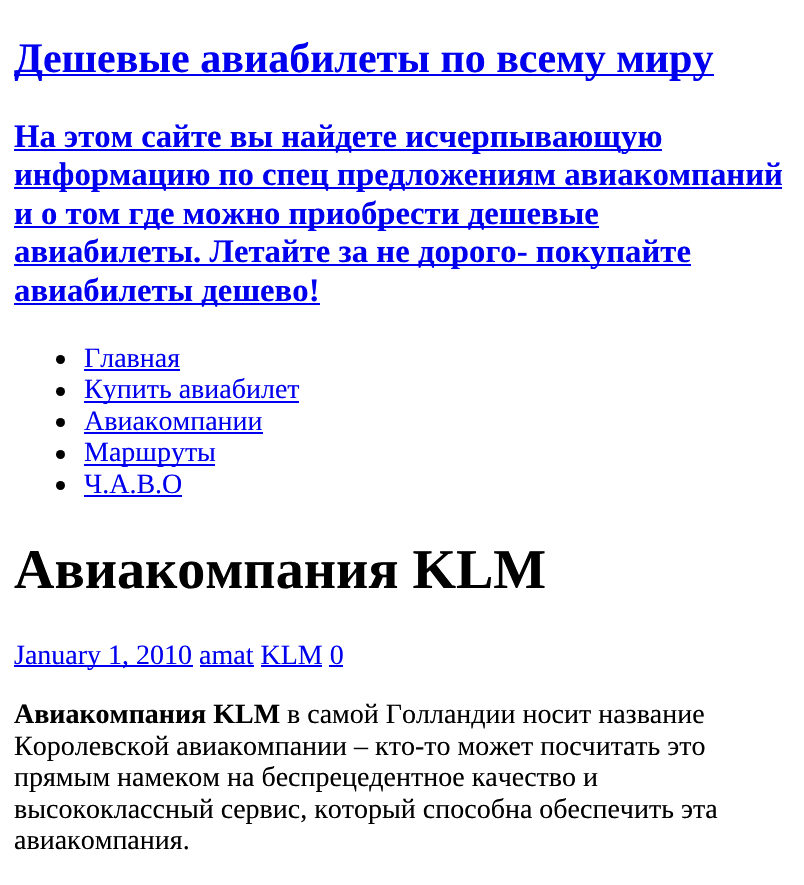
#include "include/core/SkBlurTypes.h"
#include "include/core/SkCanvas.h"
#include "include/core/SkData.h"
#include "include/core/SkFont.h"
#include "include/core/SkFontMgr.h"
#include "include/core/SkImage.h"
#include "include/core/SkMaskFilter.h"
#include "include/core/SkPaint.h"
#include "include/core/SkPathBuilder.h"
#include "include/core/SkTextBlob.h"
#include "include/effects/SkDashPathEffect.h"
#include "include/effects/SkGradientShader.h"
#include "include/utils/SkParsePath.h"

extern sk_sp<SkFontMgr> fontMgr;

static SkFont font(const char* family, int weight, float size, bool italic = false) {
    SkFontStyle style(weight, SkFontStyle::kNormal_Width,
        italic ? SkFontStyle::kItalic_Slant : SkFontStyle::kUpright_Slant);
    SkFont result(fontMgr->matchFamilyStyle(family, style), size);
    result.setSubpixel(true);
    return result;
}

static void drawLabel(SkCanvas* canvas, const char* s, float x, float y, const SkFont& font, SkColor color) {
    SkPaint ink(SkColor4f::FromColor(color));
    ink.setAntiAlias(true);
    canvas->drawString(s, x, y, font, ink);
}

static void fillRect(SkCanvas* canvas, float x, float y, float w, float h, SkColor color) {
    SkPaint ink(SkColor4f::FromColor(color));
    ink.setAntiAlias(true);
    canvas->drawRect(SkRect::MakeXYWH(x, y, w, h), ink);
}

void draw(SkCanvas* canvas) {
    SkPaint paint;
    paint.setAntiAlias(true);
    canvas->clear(0xFFFFFFFF);
    fillRect(canvas, 14, 74, 700, 2, 0xFF0000EE);
    SkFont font1 = font("Liberation Serif", 700, 42);
    drawLabel(canvas, "Дешевые авиабилеты по всему миру", 14, 72, font1, 0xFF0000EE);
    fillRect(canvas, 14, 149, 648, 2, 0xFF0000EE);
    SkFont font2 = font("Liberation Serif", 700, 32.75f);
    drawLabel(canvas, "На этом сайте вы найдете исчерпывающую", 14, 147, font2, 0xFF0000EE);
    fillRect(canvas, 14, 187, 768, 2, 0xFF0000EE);
    drawLabel(canvas, "информацию по спец предложениям авиакомпаний", 14, 185, font2, 0xFF0000EE);
    fillRect(canvas, 14, 226, 585, 2, 0xFF0000EE);
    drawLabel(canvas, "и о том где можно приобрести дешевые", 14, 224, font2, 0xFF0000EE);
    fillRect(canvas, 14, 264, 677, 2, 0xFF0000EE);
    drawLabel(canvas, "авиабилеты. Летайте за не дорого- покупайте", 14, 262, font2, 0xFF0000EE);
    fillRect(canvas, 14, 303, 306, 2, 0xFF0000EE);
    drawLabel(canvas, "авиабилеты дешево!", 14, 301, font2, 0xFF0000EE);
    paint.setColor(0xFF000000);
    canvas->drawCircle(60.5f, 359.5f, 4.5f, paint);
    SkFont font3 = font("Liberation Serif", 400, 28);
    drawLabel(canvas, "Главная", 84, 367, font3, 0xFF0000EE);
    fillRect(canvas, 84, 369, 96, 2, 0xFF0000EE);
    canvas->drawCircle(60.5f, 391.5f, 4.5f, paint);
    fillRect(canvas, 84, 401, 215, 2, 0xFF0000EE);
    drawLabel(canvas, "Купить авиабилет", 84, 398, font3, 0xFF0000EE);
    canvas->drawCircle(60.5f, 422.5f, 4.5f, paint);
    drawLabel(canvas, "Авиакомпании", 84, 430, font3, 0xFF0000EE);
    fillRect(canvas, 84, 432, 179, 2, 0xFF0000EE);
    canvas->drawCircle(60.5f, 454.5f, 4.5f, paint);
    fillRect(canvas, 84, 464, 131, 2, 0xFF0000EE);
    drawLabel(canvas, "Маршруты", 84, 461, font3, 0xFF0000EE);
    canvas->drawCircle(60.5f, 485.5f, 4.5f, paint);
    drawLabel(canvas, "Ч.А.В.О", 84, 493, font3, 0xFF0000EE);
    fillRect(canvas, 84, 495, 98, 2, 0xFF0000EE);
    SkFont font4 = font("Liberation Serif", 700, 56);
    drawLabel(canvas, "Авиакомпания KLM", 14, 588, font4, 0xFF000000);
    fillRect(canvas, 14, 665, 179, 2, 0xFF0000EE);
    drawLabel(canvas, "January 1, 2010 amat KLM 0", 14, 664, font3, 0xFF0000EE);
    fillRect(canvas, 200, 665, 54, 2, 0xFF0000EE);
    fillRect(canvas, 261, 665, 61, 2, 0xFF0000EE);
    fillRect(canvas, 329, 665, 14, 2, 0xFF0000EE);
    SkFont font5 = font("Liberation Serif", 700, 28);
    drawLabel(canvas, "Авиакомпания KLM", 14, 723, font5, 0xFF000000);
    drawLabel(canvas, "в самой Голландии носит название", 287, 723, font3, 0xFF000000);
    drawLabel(canvas, "Королевской авиакомпании – кто-то может посчитать это", 14, 755, font3, 0xFF000000);
    drawLabel(canvas, "прямым намеком на беспрецедентное качество и", 14, 786, font3, 0xFF000000);
    drawLabel(canvas, "высококлассный сервис, который способна обеспечить эта", 14, 818, font3, 0xFF000000);
    drawLabel(canvas, "авиакомпания.", 14, 849, font3, 0xFF000000);
}
